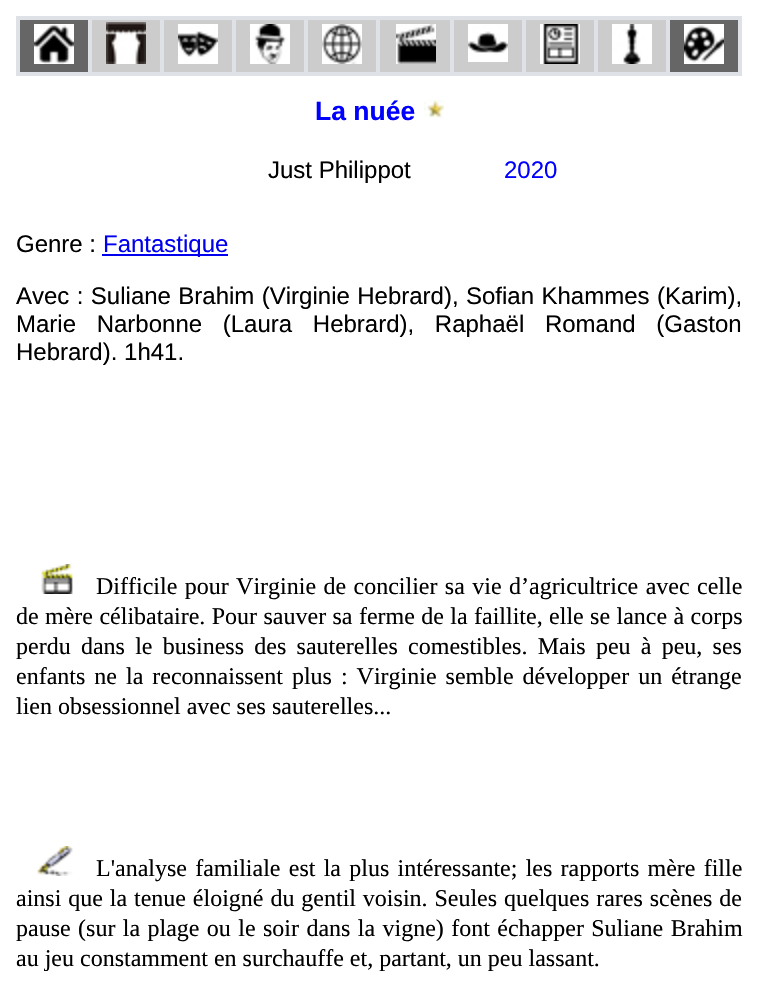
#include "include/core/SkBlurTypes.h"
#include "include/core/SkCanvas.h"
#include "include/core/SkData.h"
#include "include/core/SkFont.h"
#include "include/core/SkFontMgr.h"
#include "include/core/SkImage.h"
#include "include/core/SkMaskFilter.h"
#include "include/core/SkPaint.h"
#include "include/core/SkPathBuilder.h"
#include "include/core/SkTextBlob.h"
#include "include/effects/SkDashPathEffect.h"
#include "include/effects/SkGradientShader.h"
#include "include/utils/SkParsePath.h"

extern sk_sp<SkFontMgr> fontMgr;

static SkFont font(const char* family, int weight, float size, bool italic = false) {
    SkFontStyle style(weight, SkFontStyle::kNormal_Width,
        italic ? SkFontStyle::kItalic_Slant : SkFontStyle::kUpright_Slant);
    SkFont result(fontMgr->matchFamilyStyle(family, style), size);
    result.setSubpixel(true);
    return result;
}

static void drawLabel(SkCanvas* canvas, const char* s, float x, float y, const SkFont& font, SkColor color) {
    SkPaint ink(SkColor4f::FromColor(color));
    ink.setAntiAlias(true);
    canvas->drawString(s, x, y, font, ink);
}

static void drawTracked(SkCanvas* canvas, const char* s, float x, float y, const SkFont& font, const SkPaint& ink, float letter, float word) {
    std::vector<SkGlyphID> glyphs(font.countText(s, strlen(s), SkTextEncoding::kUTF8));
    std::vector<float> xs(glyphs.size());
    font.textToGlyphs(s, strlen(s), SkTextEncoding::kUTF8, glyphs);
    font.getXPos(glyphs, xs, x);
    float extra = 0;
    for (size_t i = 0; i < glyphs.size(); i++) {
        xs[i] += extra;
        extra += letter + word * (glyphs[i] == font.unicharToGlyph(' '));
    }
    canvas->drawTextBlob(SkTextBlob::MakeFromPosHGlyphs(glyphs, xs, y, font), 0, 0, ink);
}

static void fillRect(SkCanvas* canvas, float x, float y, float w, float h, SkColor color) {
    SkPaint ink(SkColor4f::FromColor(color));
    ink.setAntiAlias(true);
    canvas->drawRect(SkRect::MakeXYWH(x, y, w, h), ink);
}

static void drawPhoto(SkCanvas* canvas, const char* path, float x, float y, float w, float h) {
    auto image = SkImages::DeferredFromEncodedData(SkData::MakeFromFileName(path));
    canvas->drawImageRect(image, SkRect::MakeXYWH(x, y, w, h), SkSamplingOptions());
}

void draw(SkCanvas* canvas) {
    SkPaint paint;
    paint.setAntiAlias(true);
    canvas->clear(0xFFFFFFFF);
    fillRect(canvas, 16, 16, 726, 60, 0xFFDEE1E6);
    fillRect(canvas, 20, 20, 68, 52, 0xFF666666);
    drawPhoto(canvas, "assets/img1.png", 34, 24, 40, 40);
    fillRect(canvas, 92, 20, 68, 52, 0xFFCCCCCC);
    drawPhoto(canvas, "assets/img2.png", 106, 22, 40, 42);
    fillRect(canvas, 164, 20, 68, 52, 0xFFCCCCCC);
    drawPhoto(canvas, "assets/img3.png", 178, 24, 40, 40);
    fillRect(canvas, 236, 20, 68, 52, 0xFFCCCCCC);
    drawPhoto(canvas, "assets/img4.png", 250, 24, 40, 40);
    fillRect(canvas, 308, 20, 68, 52, 0xFFCCCCCC);
    drawPhoto(canvas, "assets/img5.png", 322, 24, 40, 40);
    fillRect(canvas, 380, 20, 70, 52, 0xFFCCCCCC);
    drawPhoto(canvas, "assets/img6.png", 396, 24, 40, 40);
    fillRect(canvas, 454, 20, 68, 52, 0xFFCCCCCC);
    drawPhoto(canvas, "assets/img7.png", 468, 24, 40, 38);
    fillRect(canvas, 526, 20, 68, 52, 0xFFCCCCCC);
    drawPhoto(canvas, "assets/img8.png", 540, 24, 40, 40);
    fillRect(canvas, 598, 20, 68, 52, 0xFFCCCCCC);
    drawPhoto(canvas, "assets/img9.png", 612, 24, 40, 40);
    fillRect(canvas, 670, 20, 68, 52, 0xFF666666);
    drawPhoto(canvas, "assets/img10.png", 684, 24, 40, 40);
    SkFont font1 = font("Liberation Sans", 700, 26.5f);
    drawLabel(canvas, "La nuée", 315, 120, font1, 0xFF0000FF);
    drawPhoto(canvas, "assets/img11.png", 424, 100, 20, 18);
    SkFont font2 = font("Liberation Sans", 400, 24);
    drawLabel(canvas, "Just Philippot", 268, 178, font2, 0xFF000000);
    drawLabel(canvas, "2020", 504, 178, font2, 0xFF0000FF);
    drawLabel(canvas, "Genre :", 16, 252, font2, 0xFF000000);
    fillRect(canvas, 102, 254, 126, 2, 0xFF0000EE);
    drawLabel(canvas, "Fantastique", 103, 252, font2, 0xFF0000EE);
    paint.setColor(0xFF000000);
    drawTracked(canvas, "Avec : Suliane Brahim (Virginie Hebrard), Sofian Khammes (Karim),", 16, 304, font2, paint, 0, 0.75f);
    drawTracked(canvas, "Marie Narbonne (Laura Hebrard), Raphaël Romand (Gaston", 16, 332, font2, paint, 0, 14);
    drawLabel(canvas, "Hebrard). 1h41.", 16, 360, font2, 0xFF000000);
    drawPhoto(canvas, "assets/img12.png", 41, 564, 32, 30);
    SkFont font3 = font("Liberation Serif", 400, 24);
    drawTracked(canvas, "Difficile pour Virginie de concilier sa vie d’agricultrice avec celle", 96, 594, font3, paint, 0, 1.4f);
    drawTracked(canvas, "de mère célibataire. Pour sauver sa ferme de la faillite, elle se lance à corps", 16, 624, font3, paint, 0, 0.4f);
    drawTracked(canvas, "perdu dans le business des sauterelles comestibles. Mais peu à peu, ses", 16, 654, font3, paint, 0, 4.25f);
    drawTracked(canvas, "enfants ne la reconnaissent plus : Virginie semble développer un étrange", 16, 684, font3, paint, 0, 3);
    drawLabel(canvas, "lien obsessionnel avec ses sauterelles...", 16, 714, font3, 0xFF000000);
    drawPhoto(canvas, "assets/img13.png", 37, 846, 36, 30);
    drawTracked(canvas, "L'analyse familiale est la plus intéressante; les rapports mère fille", 96, 876, font3, paint, 0, 2.25f);
    drawTracked(canvas, "ainsi que la tenue éloigné du gentil voisin. Seules quelques rares scènes de", 16, 906, font3, paint, 0, 0.9f);
    drawTracked(canvas, "pause (sur la plage ou le soir dans la vigne) font échapper Suliane Brahim", 16, 936, font3, paint, 0, 1.4f);
    drawLabel(canvas, "au jeu constamment en surchauffe et, partant, un peu lassant.", 16, 966, font3, 0xFF000000);
}
